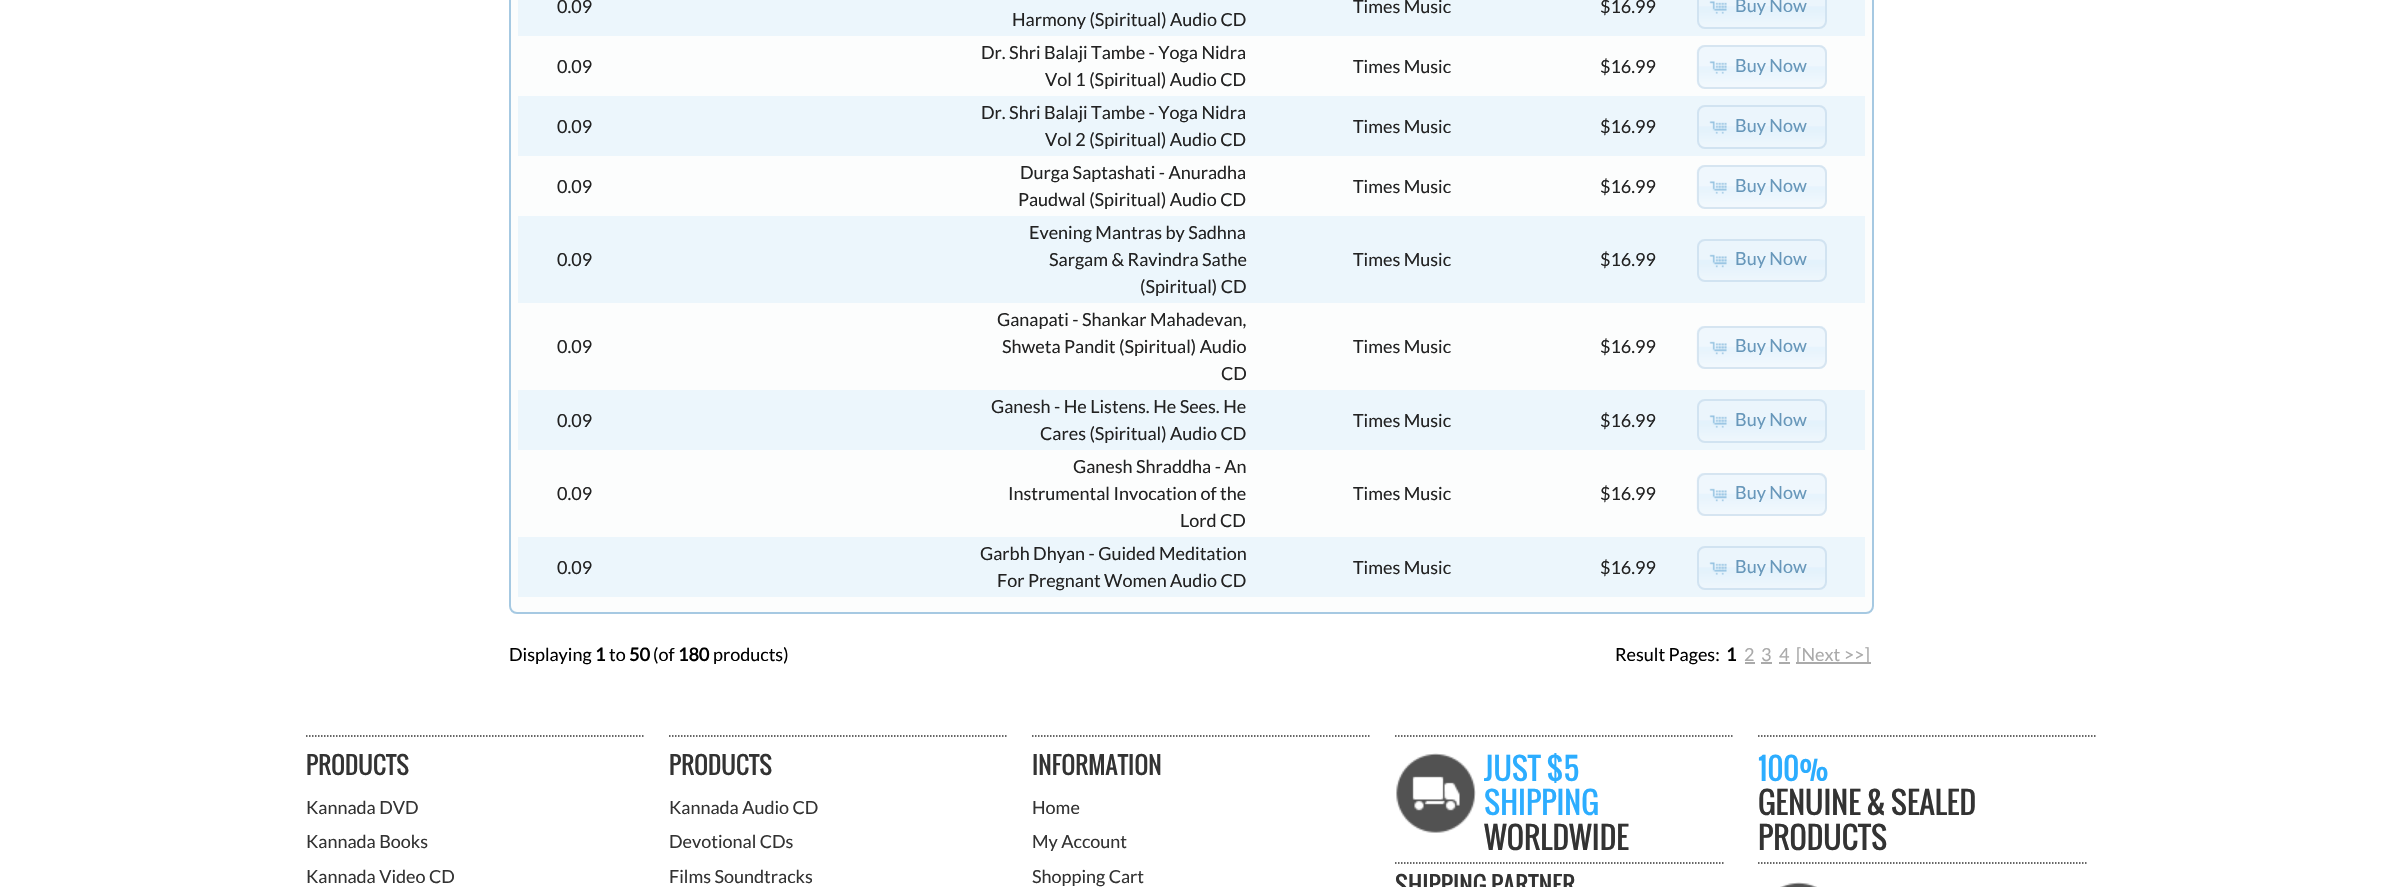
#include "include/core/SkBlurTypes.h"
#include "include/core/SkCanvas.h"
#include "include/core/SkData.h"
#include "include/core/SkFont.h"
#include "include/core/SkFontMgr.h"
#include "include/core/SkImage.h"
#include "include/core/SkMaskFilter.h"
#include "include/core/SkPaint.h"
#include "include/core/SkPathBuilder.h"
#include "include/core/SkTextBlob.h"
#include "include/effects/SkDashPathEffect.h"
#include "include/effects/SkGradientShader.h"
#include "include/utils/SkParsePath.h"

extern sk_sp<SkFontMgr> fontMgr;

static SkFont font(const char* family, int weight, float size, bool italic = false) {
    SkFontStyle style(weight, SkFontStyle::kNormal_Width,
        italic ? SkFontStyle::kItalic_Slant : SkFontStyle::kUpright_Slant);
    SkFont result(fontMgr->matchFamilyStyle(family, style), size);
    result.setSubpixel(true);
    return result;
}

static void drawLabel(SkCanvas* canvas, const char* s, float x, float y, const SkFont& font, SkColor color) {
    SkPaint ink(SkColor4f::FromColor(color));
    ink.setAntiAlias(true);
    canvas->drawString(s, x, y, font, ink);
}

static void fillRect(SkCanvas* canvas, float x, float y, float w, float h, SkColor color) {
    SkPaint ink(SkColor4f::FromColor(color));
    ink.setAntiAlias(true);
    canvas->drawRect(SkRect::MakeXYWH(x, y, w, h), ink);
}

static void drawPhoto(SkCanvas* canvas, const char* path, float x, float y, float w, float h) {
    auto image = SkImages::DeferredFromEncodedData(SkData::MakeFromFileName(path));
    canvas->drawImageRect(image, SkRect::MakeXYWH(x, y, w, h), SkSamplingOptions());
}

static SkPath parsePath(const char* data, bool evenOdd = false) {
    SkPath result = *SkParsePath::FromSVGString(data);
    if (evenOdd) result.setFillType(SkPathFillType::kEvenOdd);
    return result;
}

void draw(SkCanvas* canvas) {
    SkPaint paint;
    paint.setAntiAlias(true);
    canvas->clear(0xFFFFFFFF);
    paint.setColor(0xFFFCFDFD);
    canvas->drawPath(parsePath("M510-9H1873V606C1873 610 1870 613 1866 613H517C513 613 510 610 510 606Z"), paint);
    paint.setStroke(true);
    paint.setStrokeWidth(2);
    paint.setColor(0xFFA6C9E2);
    canvas->drawPath(parsePath("M510-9H1873V606C1873 610 1870 613 1866 613H517C513 613 510 610 510 606Z"), paint);
    fillRect(canvas, 518, 0, 1347, 36, 0xFFECF6FC);
    SkFont font1 = font("Lato", 400, 18);
    drawLabel(canvas, "0.09", 557, 13, font1, 0xFF222222);
    drawLabel(canvas, "Times Music", 1353, 13, font1, 0xFF222222);
    drawLabel(canvas, "$16.99", 1600, 13, font1, 0xFF222222);
    drawPhoto(canvas, "assets/img1.png", 1697, 0, 130, 28);
    paint.setColor(0xFFD1E3F1);
    canvas->drawRoundRect(SkRect::MakeXYWH(1698, -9, 128, 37), 7, 7, paint);
    drawPhoto(canvas, "assets/img2.png", 1709, 1, 18, 13);
    drawLabel(canvas, "Buy Now", 1735, 12, font1, 0xFF6797BA);
    drawLabel(canvas, "Harmony (Spiritual) Audio CD", 1012, 26, font1, 0xFF222222);
    drawLabel(canvas, "0.09", 557, 73, font1, 0xFF222222);
    drawLabel(canvas, "Dr. Shri Balaji Tambe - Yoga Nidra", 981, 59, font1, 0xFF222222);
    drawLabel(canvas, "Vol 1 (Spiritual) Audio CD", 1045, 86, font1, 0xFF222222);
    drawLabel(canvas, "Times Music", 1353, 73, font1, 0xFF222222);
    drawLabel(canvas, "$16.99", 1600, 73, font1, 0xFF222222);
    drawPhoto(canvas, "assets/img3.png", 1696, 45, 131, 43);
    paint.setColor(0xFFD6E5F1);
    canvas->drawRoundRect(SkRect::MakeXYWH(1698, 46, 128, 42), 7, 7, paint);
    drawPhoto(canvas, "assets/img4.png", 1709, 61, 18, 13);
    drawLabel(canvas, "Buy Now", 1735, 72, font1, 0xFF6797BA);
    fillRect(canvas, 518, 96, 1347, 60, 0xFFECF6FC);
    drawLabel(canvas, "0.09", 557, 133, font1, 0xFF222222);
    drawLabel(canvas, "Dr. Shri Balaji Tambe - Yoga Nidra", 981, 119, font1, 0xFF222222);
    drawLabel(canvas, "Vol 2 (Spiritual) Audio CD", 1045, 146, font1, 0xFF222222);
    drawLabel(canvas, "Times Music", 1353, 133, font1, 0xFF222222);
    drawLabel(canvas, "$16.99", 1600, 133, font1, 0xFF222222);
    drawPhoto(canvas, "assets/img5.png", 1697, 105, 130, 43);
    paint.setColor(0xFFD1E3F1);
    canvas->drawRoundRect(SkRect::MakeXYWH(1698, 106, 128, 42), 7, 7, paint);
    drawPhoto(canvas, "assets/img2.png", 1709, 121, 18, 13);
    drawLabel(canvas, "Buy Now", 1735, 132, font1, 0xFF6797BA);
    drawLabel(canvas, "0.09", 557, 193, font1, 0xFF222222);
    drawLabel(canvas, "Durga Saptashati - Anuradha", 1020, 179, font1, 0xFF222222);
    drawLabel(canvas, "Paudwal (Spiritual) Audio CD", 1018, 206, font1, 0xFF222222);
    drawLabel(canvas, "Times Music", 1353, 193, font1, 0xFF222222);
    drawLabel(canvas, "$16.99", 1600, 193, font1, 0xFF222222);
    drawPhoto(canvas, "assets/img3.png", 1696, 165, 131, 43);
    paint.setColor(0xFFD6E5F1);
    canvas->drawRoundRect(SkRect::MakeXYWH(1698, 166, 128, 42), 7, 7, paint);
    drawPhoto(canvas, "assets/img4.png", 1709, 181, 18, 13);
    drawLabel(canvas, "Buy Now", 1735, 192, font1, 0xFF6797BA);
    fillRect(canvas, 518, 216, 1347, 87, 0xFFECF6FC);
    drawLabel(canvas, "0.09", 557, 266, font1, 0xFF222222);
    drawLabel(canvas, "Evening Mantras by Sadhna", 1029, 239, font1, 0xFF222222);
    drawLabel(canvas, "Sargam & Ravindra Sathe", 1049, 266, font1, 0xFF222222);
    drawLabel(canvas, "(Spiritual) CD", 1140, 293, font1, 0xFF222222);
    drawLabel(canvas, "Times Music", 1353, 266, font1, 0xFF222222);
    drawLabel(canvas, "$16.99", 1600, 266, font1, 0xFF222222);
    drawPhoto(canvas, "assets/img6.png", 1697, 239, 130, 43);
    paint.setColor(0xFFD1E3F1);
    canvas->drawRoundRect(SkRect::MakeXYWH(1698, 240, 128, 41), 7, 7, paint);
    drawPhoto(canvas, "assets/img7.png", 1709, 254, 18, 14);
    drawLabel(canvas, "Buy Now", 1735, 265, font1, 0xFF6797BA);
    drawLabel(canvas, "0.09", 557, 353, font1, 0xFF222222);
    drawLabel(canvas, "Ganapati - Shankar Mahadevan,", 997, 326, font1, 0xFF222222);
    drawLabel(canvas, "Shweta Pandit (Spiritual) Audio", 1002, 353, font1, 0xFF222222);
    drawLabel(canvas, "CD", 1221, 380, font1, 0xFF222222);
    drawLabel(canvas, "Times Music", 1353, 353, font1, 0xFF222222);
    drawLabel(canvas, "$16.99", 1600, 353, font1, 0xFF222222);
    drawPhoto(canvas, "assets/img8.png", 1696, 326, 131, 43);
    paint.setColor(0xFFD6E5F1);
    canvas->drawRoundRect(SkRect::MakeXYWH(1698, 327, 128, 41), 7, 7, paint);
    drawPhoto(canvas, "assets/img9.png", 1709, 341, 18, 14);
    drawLabel(canvas, "Buy Now", 1735, 352, font1, 0xFF6797BA);
    fillRect(canvas, 518, 390, 1347, 60, 0xFFECF6FC);
    drawLabel(canvas, "0.09", 557, 427, font1, 0xFF222222);
    drawLabel(canvas, "Ganesh - He Listens. He Sees. He", 991, 413, font1, 0xFF222222);
    drawLabel(canvas, "Cares (Spiritual) Audio CD", 1040, 440, font1, 0xFF222222);
    drawLabel(canvas, "Times Music", 1353, 427, font1, 0xFF222222);
    drawLabel(canvas, "$16.99", 1600, 427, font1, 0xFF222222);
    drawPhoto(canvas, "assets/img5.png", 1697, 399, 130, 43);
    paint.setColor(0xFFD1E3F1);
    canvas->drawRoundRect(SkRect::MakeXYWH(1698, 400, 128, 42), 7, 7, paint);
    drawPhoto(canvas, "assets/img2.png", 1709, 415, 18, 13);
    drawLabel(canvas, "Buy Now", 1735, 426, font1, 0xFF6797BA);
    drawLabel(canvas, "0.09", 557, 500, font1, 0xFF222222);
    drawLabel(canvas, "Ganesh Shraddha - An", 1073, 473, font1, 0xFF222222);
    drawLabel(canvas, "Instrumental Invocation of the", 1008, 500, font1, 0xFF222222);
    drawLabel(canvas, "Lord CD", 1180, 527, font1, 0xFF222222);
    drawLabel(canvas, "Times Music", 1353, 500, font1, 0xFF222222);
    drawLabel(canvas, "$16.99", 1600, 500, font1, 0xFF222222);
    drawPhoto(canvas, "assets/img8.png", 1696, 473, 131, 43);
    paint.setColor(0xFFD6E5F1);
    canvas->drawRoundRect(SkRect::MakeXYWH(1698, 474, 128, 41), 7, 7, paint);
    drawPhoto(canvas, "assets/img9.png", 1709, 488, 18, 14);
    drawLabel(canvas, "Buy Now", 1735, 499, font1, 0xFF6797BA);
    fillRect(canvas, 518, 537, 1347, 60, 0xFFECF6FC);
    drawLabel(canvas, "0.09", 557, 574, font1, 0xFF222222);
    drawLabel(canvas, "Garbh Dhyan - Guided Meditation", 980, 560, font1, 0xFF222222);
    drawLabel(canvas, "For Pregnant Women Audio CD", 997, 587, font1, 0xFF222222);
    drawLabel(canvas, "Times Music", 1353, 574, font1, 0xFF222222);
    drawLabel(canvas, "$16.99", 1600, 574, font1, 0xFF222222);
    drawPhoto(canvas, "assets/img5.png", 1697, 546, 130, 43);
    paint.setColor(0xFFD1E3F1);
    canvas->drawRoundRect(SkRect::MakeXYWH(1698, 547, 128, 42), 7, 7, paint);
    drawPhoto(canvas, "assets/img2.png", 1709, 562, 18, 13);
    drawLabel(canvas, "Buy Now", 1735, 573, font1, 0xFF6797BA);
    drawLabel(canvas, "Displaying", 509, 661, font1, 0xFF000000);
    SkFont font2 = font("Lato", 700, 18);
    drawLabel(canvas, "1", 595, 661, font2, 0xFF000000);
    drawLabel(canvas, "to", 609, 661, font1, 0xFF000000);
    drawLabel(canvas, "50", 629, 661, font2, 0xFF000000);
    drawLabel(canvas, "(of", 653, 661, font1, 0xFF000000);
    drawLabel(canvas, "180", 678, 661, font2, 0xFF000000);
    drawLabel(canvas, "products)", 713, 661, font1, 0xFF000000);
    drawLabel(canvas, "Result Pages:", 1615, 661, font1, 0xFF000000);
    drawLabel(canvas, "1", 1726, 661, font2, 0xFF000000);
    drawLabel(canvas, "2", 1744, 661, font1, 0xFFAAAAAA);
    fillRect(canvas, 1745, 662, 10, 2, 0xFFAAAAAA);
    drawLabel(canvas, "3", 1761, 661, font1, 0xFFAAAAAA);
    fillRect(canvas, 1761, 662, 11, 2, 0xFFAAAAAA);
    drawLabel(canvas, "4", 1779, 661, font1, 0xFFAAAAAA);
    fillRect(canvas, 1779, 662, 11, 2, 0xFFAAAAAA);
    fillRect(canvas, 1796, 662, 75, 2, 0xFFAAAAAA);
    drawLabel(canvas, "[Next >>]", 1796, 661, font1, 0xFFAAAAAA);
    paint.setStrokeWidth(1.5f);
    paint.setColor(0xFF333333);
    paint.setPathEffect(SkDashPathEffect::Make({{1.5f, 1.5f}}, 0));
    canvas->drawPath(parsePath("M306 736H643.5"), paint);
    paint.setPathEffect(nullptr);
    SkFont font3 = font("Oswald", 400, 24);
    drawLabel(canvas, "PRODUCTS", 306, 775, font3, 0xFF333333);
    drawLabel(canvas, "Kannada DVD", 306, 814, font1, 0xFF333333);
    drawLabel(canvas, "Kannada Books", 306, 848, font1, 0xFF333333);
    drawLabel(canvas, "Kannada Video CD", 306, 883, font1, 0xFF333333);
    paint.setPathEffect(SkDashPathEffect::Make({{1.5f, 1.5f}}, 0));
    canvas->drawPath(parsePath("M669 736H1006.5"), paint);
    paint.setPathEffect(nullptr);
    drawLabel(canvas, "PRODUCTS", 669, 775, font3, 0xFF333333);
    drawLabel(canvas, "Kannada Audio CD", 669, 814, font1, 0xFF333333);
    drawLabel(canvas, "Devotional CDs", 669, 848, font1, 0xFF333333);
    drawLabel(canvas, "Films Soundtracks", 669, 883, font1, 0xFF333333);
    paint.setPathEffect(SkDashPathEffect::Make({{1.5f, 1.5f}}, 0));
    canvas->drawPath(parsePath("M1032 736H1369.5"), paint);
    paint.setPathEffect(nullptr);
    drawLabel(canvas, "INFORMATION", 1032, 775, font3, 0xFF333333);
    drawLabel(canvas, "Home", 1032, 814, font1, 0xFF333333);
    drawLabel(canvas, "My Account", 1032, 848, font1, 0xFF333333);
    drawLabel(canvas, "Shopping Cart", 1032, 883, font1, 0xFF333333);
    paint.setPathEffect(SkDashPathEffect::Make({{1.5f, 1.5f}}, 0));
    canvas->drawPath(parsePath("M1395 736H1732.5"), paint);
    paint.setPathEffect(nullptr);
    paint.setPathEffect(SkDashPathEffect::Make({{1.5f, 1.5f}}, 0));
    canvas->drawPath(parsePath("M1395 863H1725"), paint);
    paint.setPathEffect(nullptr);
    drawPhoto(canvas, "assets/img10.png", 1396, 753, 80, 80);
    SkFont font4 = font("Oswald", 400, 30);
    drawLabel(canvas, "JUST $5", 1484, 781, font4, 0xFF2CADFF);
    drawLabel(canvas, "SHIPPING", 1484, 815, font4, 0xFF2CADFF);
    drawLabel(canvas, "WORLDWIDE", 1484, 850, font4, 0xFF333333);
    drawLabel(canvas, "SHIPPING PARTNER", 1395, 895, font3, 0xFF333333);
    paint.setPathEffect(SkDashPathEffect::Make({{1.5f, 1.5f}}, 0));
    canvas->drawPath(parsePath("M1758 736H2095.5"), paint);
    paint.setPathEffect(nullptr);
    paint.setPathEffect(SkDashPathEffect::Make({{1.5f, 1.5f}}, 0));
    canvas->drawPath(parsePath("M1758 863H2088"), paint);
    paint.setPathEffect(nullptr);
    drawLabel(canvas, "100%", 1758, 781, font4, 0xFF2CADFF);
    drawLabel(canvas, "GENUINE & SEALED", 1758, 815, font4, 0xFF333333);
    drawLabel(canvas, "PRODUCTS", 1758, 850, font4, 0xFF333333);
    drawPhoto(canvas, "assets/img11.png", 1780, 882, 37, 5);
}
